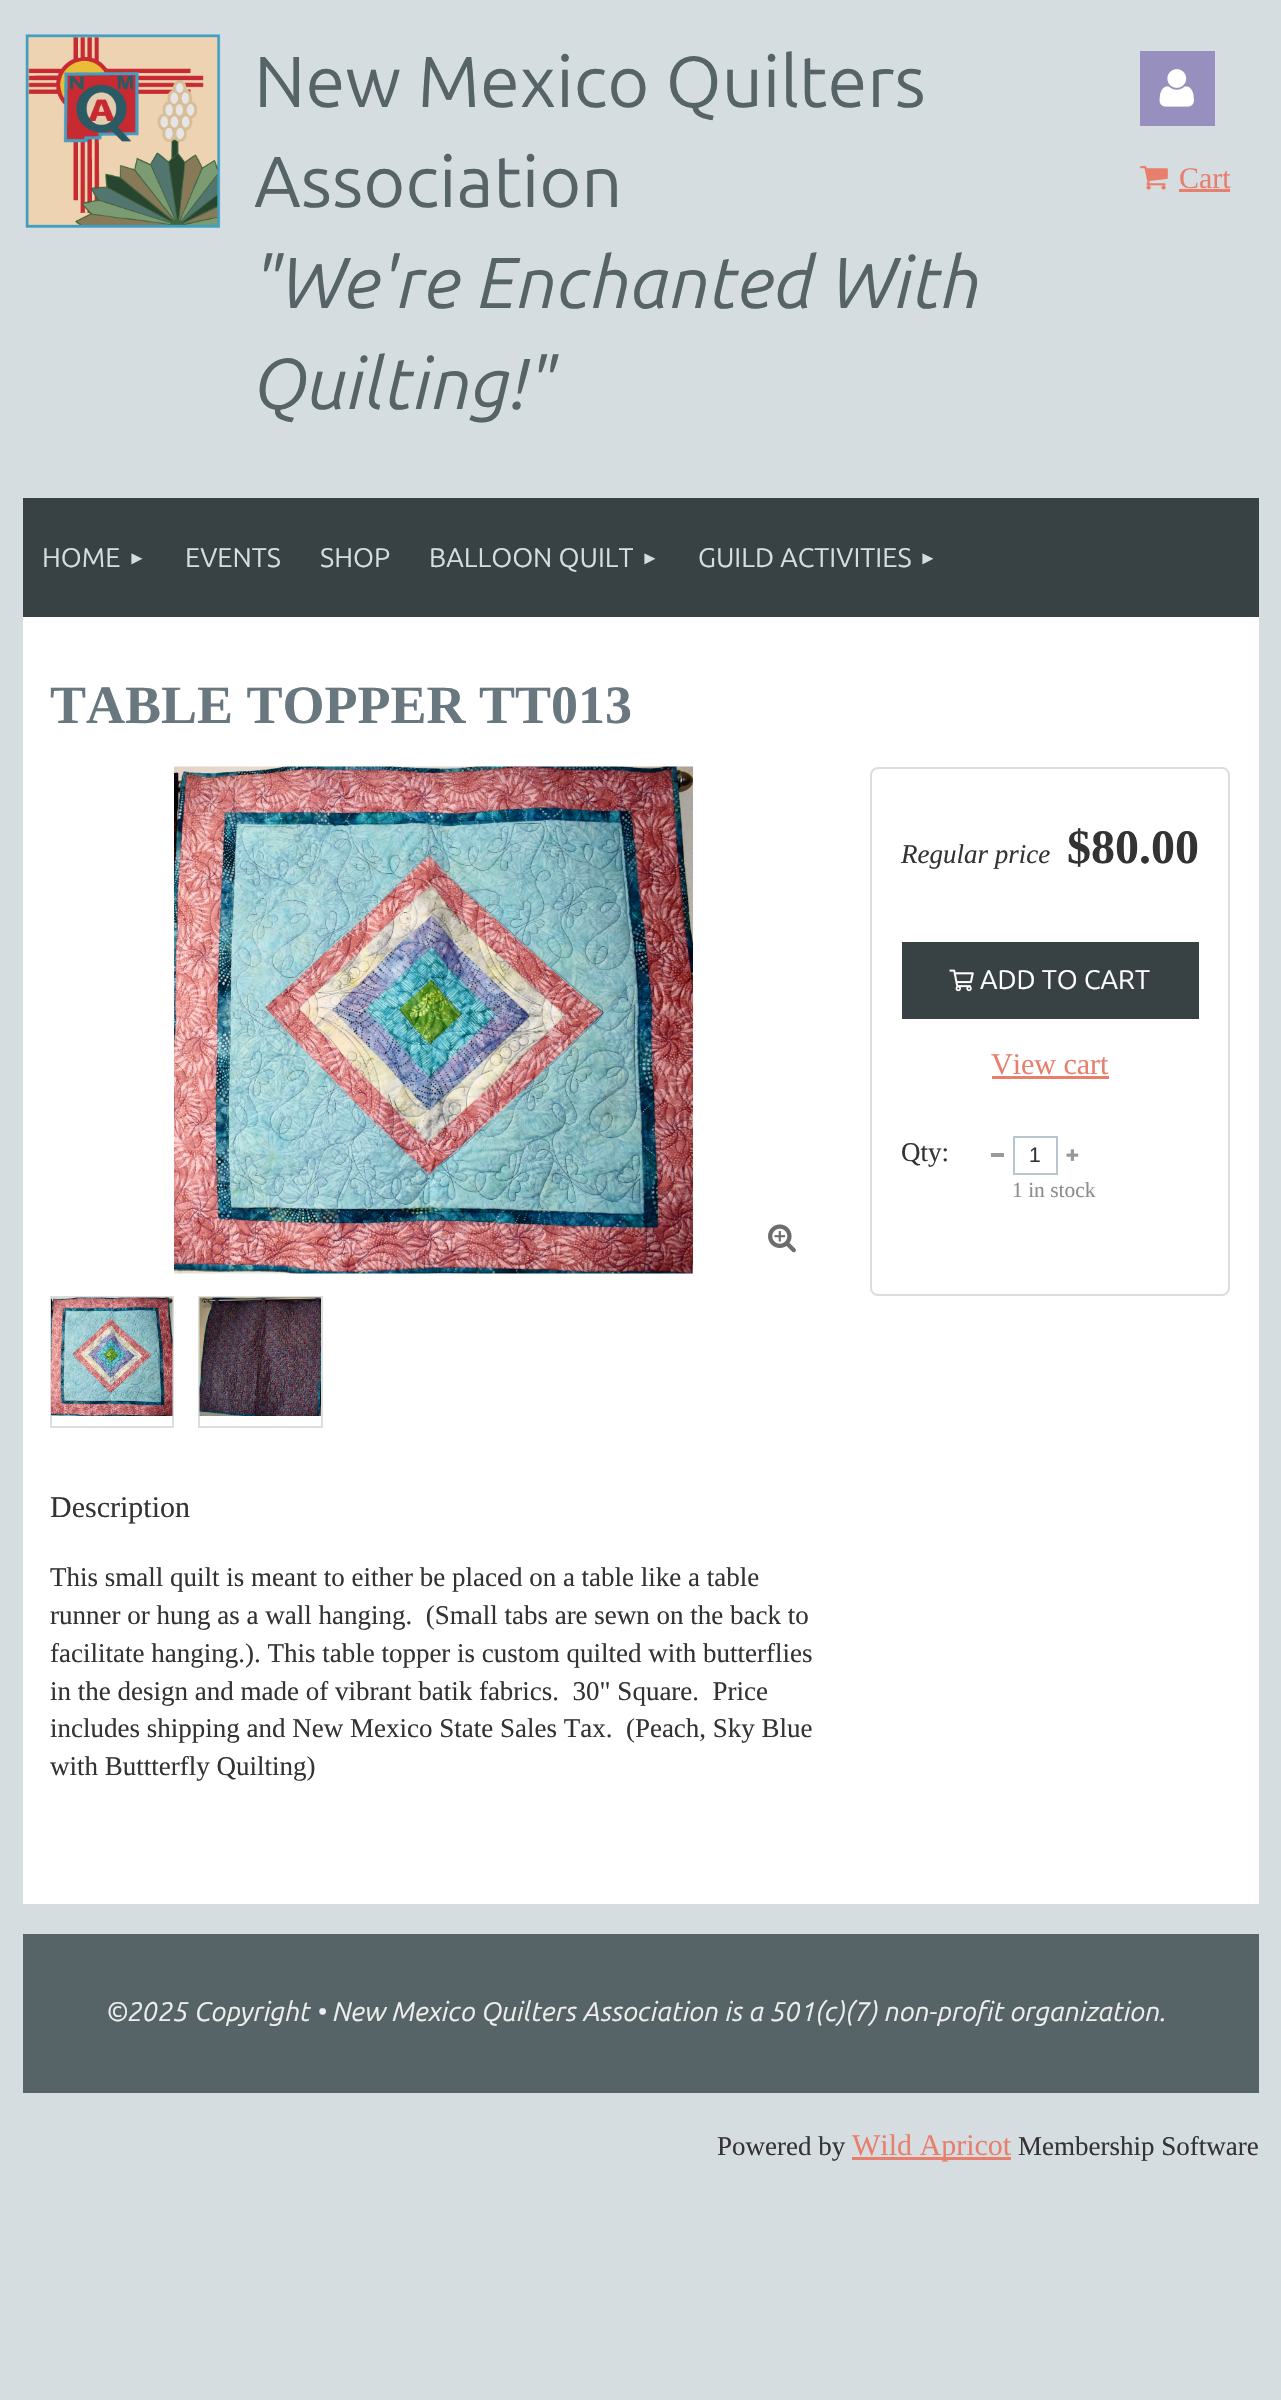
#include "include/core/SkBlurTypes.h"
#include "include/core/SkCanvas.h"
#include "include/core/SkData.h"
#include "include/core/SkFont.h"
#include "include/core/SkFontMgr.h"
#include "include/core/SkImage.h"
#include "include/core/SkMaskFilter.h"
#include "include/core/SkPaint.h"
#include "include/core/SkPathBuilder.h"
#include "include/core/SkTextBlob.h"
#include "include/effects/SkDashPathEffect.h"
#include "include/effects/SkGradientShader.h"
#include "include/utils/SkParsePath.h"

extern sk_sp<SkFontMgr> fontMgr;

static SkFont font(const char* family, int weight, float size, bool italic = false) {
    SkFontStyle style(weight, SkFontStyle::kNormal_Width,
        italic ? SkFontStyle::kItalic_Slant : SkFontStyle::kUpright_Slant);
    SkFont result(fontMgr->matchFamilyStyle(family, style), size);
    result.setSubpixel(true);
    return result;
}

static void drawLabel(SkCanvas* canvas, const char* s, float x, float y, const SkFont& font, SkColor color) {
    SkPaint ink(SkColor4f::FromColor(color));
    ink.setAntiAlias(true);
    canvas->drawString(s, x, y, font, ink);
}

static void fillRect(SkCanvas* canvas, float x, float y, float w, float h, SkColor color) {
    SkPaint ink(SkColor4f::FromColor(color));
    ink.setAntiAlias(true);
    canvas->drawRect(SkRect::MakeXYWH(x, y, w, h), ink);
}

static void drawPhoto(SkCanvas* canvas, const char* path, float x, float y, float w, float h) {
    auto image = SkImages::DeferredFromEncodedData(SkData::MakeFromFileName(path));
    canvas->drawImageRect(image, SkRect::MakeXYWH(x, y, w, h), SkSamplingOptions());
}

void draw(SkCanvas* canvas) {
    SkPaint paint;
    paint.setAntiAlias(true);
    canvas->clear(0xFFD6DDE1);
    drawPhoto(canvas, "assets/img1.png", 25, 34, 196, 194);
    SkFont font1 = font("Ubuntu", 400, 72);
    drawLabel(canvas, "New Mexico Quilters", 254, 107, font1, 0xFF566467);
    drawLabel(canvas, "Association", 254, 207, font1, 0xFF566467);
    SkFont font2 = font("Ubuntu", 400, 72, true);
    drawLabel(canvas, "\"We're Enchanted With", 254, 308, font2, 0xFF566467);
    drawLabel(canvas, "Quilting!\"", 254, 409, font2, 0xFF566467);
    fillRect(canvas, 1140, 51, 75, 75, 0xFF9790BE);
    drawPhoto(canvas, "assets/img2.png", 1159, 69, 35, 38);
    drawPhoto(canvas, "assets/img3.png", 1140, 166, 28, 24);
    SkFont font3 = font("Liberation Serif", 400, 30);
    drawLabel(canvas, "Cart", 1179, 188, font3, 0xFFE87F6D);
    fillRect(canvas, 1179, 189, 51, 3, 0xFFE87F6D);
    fillRect(canvas, 23, 498, 1236, 119, 0xFF384244);
    SkFont font4 = font("Ubuntu", 400, 27);
    drawLabel(canvas, "HOME", 42, 567, font4, 0xFFD6DDE1);
    SkFont font5 = font("Liberation Sans", 400, 18);
    drawLabel(canvas, "►", 128, 564, font5, 0xFFD6DDE1);
    drawLabel(canvas, "EVENTS", 185, 567, font4, 0xFFD6DDE1);
    drawLabel(canvas, "SHOP", 320, 567, font4, 0xFFD6DDE1);
    drawLabel(canvas, "BALLOON QUILT", 429, 567, font4, 0xFFD6DDE1);
    drawLabel(canvas, "►", 641, 564, font5, 0xFFD6DDE1);
    drawLabel(canvas, "GUILD ACTIVITIES", 698, 567, font4, 0xFFD6DDE1);
    drawLabel(canvas, "►", 919, 564, font5, 0xFFD6DDE1);
    fillRect(canvas, 23, 617, 1236, 1287, 0xFFFFFFFF);
    SkFont font6 = font("Liberation Serif", 700, 54);
    drawLabel(canvas, "TABLE TOPPER TT013", 50, 723, font6, 0xFF69777F);
    drawPhoto(canvas, "assets/img4.png", 174, 766, 519, 508);
    drawPhoto(canvas, "assets/img5.png", 768, 1224, 28, 29);
    paint.setStroke(true);
    paint.setStrokeWidth(2);
    paint.setColor(0xFFDCDDDE);
    canvas->drawRect(SkRect::MakeXYWH(51, 1297, 122, 130), paint);
    drawPhoto(canvas, "assets/img6.png", 51, 1297, 122, 119);
    canvas->drawRect(SkRect::MakeXYWH(199, 1297, 123, 130), paint);
    drawPhoto(canvas, "assets/img7.png", 199, 1297, 122, 119);
    canvas->drawRoundRect(SkRect::MakeXYWH(871, 768, 358, 527), 7, 7, paint);
    SkFont font7 = font("Liberation Serif", 400, 27, true);
    drawLabel(canvas, "Regular price", 901, 863, font7, 0xFF333333);
    SkFont font8 = font("Liberation Serif", 700, 48);
    drawLabel(canvas, "$80.00", 1067, 863, font8, 0xFF333333);
    fillRect(canvas, 902, 942, 297, 77, 0xFF384244);
    drawPhoto(canvas, "assets/img8.png", 949, 969, 25, 23);
    drawLabel(canvas, "ADD TO CART", 980, 989, font4, 0xFFFFFFFF);
    drawLabel(canvas, "View cart", 991, 1074, font3, 0xFFE87F6D);
    fillRect(canvas, 992, 1076, 117, 3, 0xFFE87F6D);
    SkFont font9 = font("Liberation Serif", 400, 27);
    drawLabel(canvas, "Qty:", 901, 1161, font9, 0xFF333333);
    fillRect(canvas, 991, 1153, 13, 4, 0xFF999999);
    paint.setColor(0xFFB8C6CD);
    canvas->drawRect(SkRect::MakeXYWH(1014, 1137, 43, 37), paint);
    SkFont font10 = font("Liberation Sans", 400, 21);
    drawLabel(canvas, "1", 1029, 1162, font10, 0xFF333333);
    drawPhoto(canvas, "assets/img9.png", 1066, 1149, 13, 12);
    SkFont font11 = font("Liberation Serif", 400, 21.5f);
    drawLabel(canvas, "1 in stock", 1012, 1197, font11, 0xFF8D8D8D);
    drawLabel(canvas, "Description", 50, 1517, font3, 0xFF333333);
    drawLabel(canvas, "This small quilt is meant to either be placed on a table like a table", 50, 1586, font9, 0xFF333333);
    drawLabel(canvas, "runner or hung as a wall hanging.  (Small tabs are sewn on the back to", 50, 1624, font9, 0xFF333333);
    drawLabel(canvas, "facilitate hanging.). This table topper is custom quilted with butterflies", 50, 1662, font9, 0xFF333333);
    drawLabel(canvas, "in the design and made of vibrant batik fabrics.  30\" Square.  Price", 50, 1700, font9, 0xFF333333);
    drawLabel(canvas, "includes shipping and New Mexico State Sales Tax.  (Peach, Sky Blue", 50, 1737, font9, 0xFF333333);
    drawLabel(canvas, "with Buttterfly Quilting)", 50, 1775, font9, 0xFF333333);
    fillRect(canvas, 23, 1934, 1236, 159, 0xFF566467);
    SkFont font12 = font("Ubuntu", 400, 27, true);
    drawLabel(canvas, "©2025 Copyright • New Mexico Quilters Association is a 501(c)(7) non-profit organization.", 107, 2021, font12, 0xFFEEEEEE);
    drawLabel(canvas, "Powered by", 717, 2155, font9, 0xFF333333);
    fillRect(canvas, 852, 2157, 159, 3, 0xFFE87F6D);
    drawLabel(canvas, "Wild Apricot", 852, 2155, font3, 0xFFE87F6D);
    drawLabel(canvas, "Membership Software", 1018, 2155, font9, 0xFF333333);
}
